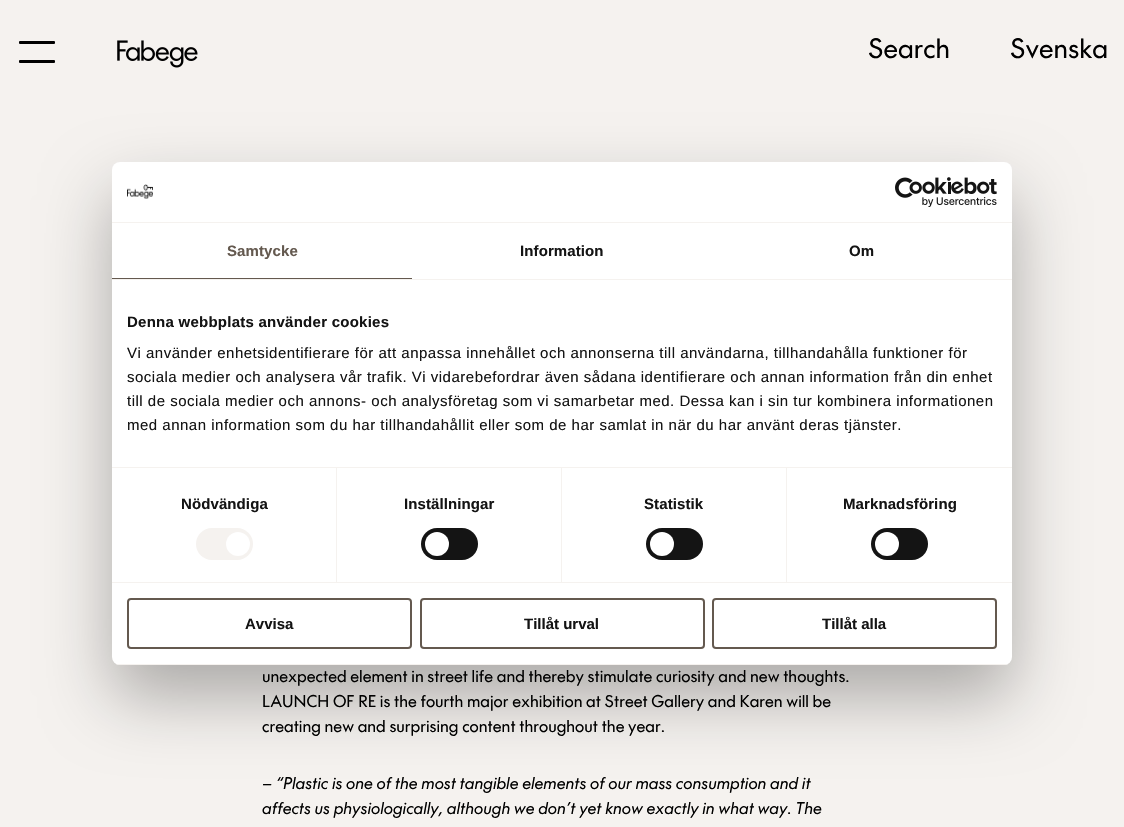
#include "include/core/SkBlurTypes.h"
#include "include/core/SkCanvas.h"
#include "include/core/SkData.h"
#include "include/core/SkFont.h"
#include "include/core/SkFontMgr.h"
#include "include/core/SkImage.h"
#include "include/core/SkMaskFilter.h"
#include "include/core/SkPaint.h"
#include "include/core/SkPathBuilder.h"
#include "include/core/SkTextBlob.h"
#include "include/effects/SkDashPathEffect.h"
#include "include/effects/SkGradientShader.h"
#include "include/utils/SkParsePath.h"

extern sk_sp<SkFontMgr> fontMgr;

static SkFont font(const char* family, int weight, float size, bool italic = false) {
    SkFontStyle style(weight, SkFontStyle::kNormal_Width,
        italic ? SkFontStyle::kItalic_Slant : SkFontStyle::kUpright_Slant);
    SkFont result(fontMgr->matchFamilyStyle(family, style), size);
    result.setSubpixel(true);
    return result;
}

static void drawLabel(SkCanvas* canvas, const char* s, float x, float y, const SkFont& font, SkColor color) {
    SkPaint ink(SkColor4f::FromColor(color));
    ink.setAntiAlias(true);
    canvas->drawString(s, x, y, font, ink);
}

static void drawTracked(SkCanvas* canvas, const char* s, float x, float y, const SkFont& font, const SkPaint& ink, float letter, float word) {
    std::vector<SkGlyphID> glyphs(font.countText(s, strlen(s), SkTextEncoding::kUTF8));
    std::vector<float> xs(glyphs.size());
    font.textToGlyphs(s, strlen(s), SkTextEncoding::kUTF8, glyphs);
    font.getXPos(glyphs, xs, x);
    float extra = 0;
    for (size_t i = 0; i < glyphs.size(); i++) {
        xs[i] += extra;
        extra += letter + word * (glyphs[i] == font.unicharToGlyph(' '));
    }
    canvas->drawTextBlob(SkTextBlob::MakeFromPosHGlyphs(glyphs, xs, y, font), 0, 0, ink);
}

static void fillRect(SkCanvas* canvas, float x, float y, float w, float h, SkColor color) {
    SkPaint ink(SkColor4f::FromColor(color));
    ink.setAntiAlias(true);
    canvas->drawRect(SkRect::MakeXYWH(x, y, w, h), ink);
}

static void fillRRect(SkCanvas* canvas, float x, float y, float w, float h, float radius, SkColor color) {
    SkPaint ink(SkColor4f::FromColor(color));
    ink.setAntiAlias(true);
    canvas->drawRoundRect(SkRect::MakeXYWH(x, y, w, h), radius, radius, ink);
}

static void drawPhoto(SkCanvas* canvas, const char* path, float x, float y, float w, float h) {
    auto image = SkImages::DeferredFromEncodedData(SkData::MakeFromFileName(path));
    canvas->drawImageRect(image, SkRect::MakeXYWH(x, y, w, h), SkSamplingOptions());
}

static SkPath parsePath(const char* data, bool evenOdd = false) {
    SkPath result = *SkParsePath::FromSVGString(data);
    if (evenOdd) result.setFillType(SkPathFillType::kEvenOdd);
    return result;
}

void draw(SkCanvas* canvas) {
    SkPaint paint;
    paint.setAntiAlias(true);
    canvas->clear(0xFFF5F2EF);
    fillRRect(canvas, 19, 41, 36, 3, 1, 0xFF000000);
    fillRRect(canvas, 19, 60, 36, 3, 1, 0xFF000000);
    drawPhoto(canvas, "assets/img1.png", 117, 40, 81, 28);
    SkFont font1 = font("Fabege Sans", 400, 28);
    drawLabel(canvas, "Search", 868, 58, font1, 0xFF000000);
    drawLabel(canvas, "Svenska", 1010, 58, font1, 0xFF000000);
    paint.setColor(0x4D000000);
    paint.setMaskFilter(SkMaskFilter::MakeBlur(kNormal_SkBlurStyle, 34));
    canvas->drawRoundRect(SkRect::MakeXYWH(112, 194, 900, 503), 8, 8, paint);
    paint.setMaskFilter(nullptr);
    fillRRect(canvas, 112, 162, 900, 503, 8, 0xFFFFFFFF);
    fillRect(canvas, 112, 222, 900, 1, 0xFFF5F2EF);
    drawPhoto(canvas, "assets/img2.png", 127, 184, 26, 15);
    drawPhoto(canvas, "assets/img3.png", 895, 177, 102, 30);
    fillRect(canvas, 112, 279, 900, 1, 0xFFF5F2EF);
    fillRect(canvas, 112, 278, 300, 1, 0xFF64594F);
    SkFont font2 = font("Liberation Sans", 700, 15);
    paint.setColor(0xFF64594F);
    drawTracked(canvas, "Samtycke", 227, 256, font2, paint, 0.1f, 0);
    paint.setColor(0xFF141414);
    drawTracked(canvas, "Information", 520, 256, font2, paint, 0.1f, 0);
    drawTracked(canvas, "Om", 849, 256, font2, paint, 0.1f, 0);
    fillRect(canvas, 112, 467, 900, 1, 0xFFF5F2EF);
    drawTracked(canvas, "Denna webbplats använder cookies", 127, 327, font2, paint, 0.25f, 0);
    SkFont font3 = font("Liberation Sans", 400, 15);
    drawTracked(canvas, "Vi använder enhetsidentifierare för att anpassa innehållet och annonserna till användarna, tillhandahålla funktioner för", 127, 358, font3, paint, 0.5f, 0);
    drawTracked(canvas, "sociala medier och analysera vår trafik. Vi vidarebefordrar även sådana identifierare och annan information från din enhet", 127, 382, font3, paint, 0.5f, 0);
    drawTracked(canvas, "till de sociala medier och annons- och analysföretag som vi samarbetar med. Dessa kan i sin tur kombinera informationen", 127, 406, font3, paint, 0.5f, 0);
    drawTracked(canvas, "med annan information som du har tillhandahållit eller som de har samlat in när du har använt deras tjänster.", 127, 430, font3, paint, 0.5f, 0);
    fillRect(canvas, 112, 582, 900, 1, 0xFFF5F2EF);
    fillRect(canvas, 336, 468, 1, 114, 0xFFF5F2EF);
    drawTracked(canvas, "Nödvändiga", 181, 509, font2, paint, 0.1f, 0);
    fillRRect(canvas, 196, 528, 57, 32, 16, 0xFFF5F2EF);
    paint.setColor(0xFFFFFFFF);
    canvas->drawCircle(238, 544, 12, paint);
    fillRect(canvas, 561, 468, 1, 114, 0xFFF5F2EF);
    paint.setColor(0xFF141414);
    drawTracked(canvas, "Inställningar", 404, 509, font2, paint, 0.1f, 0);
    fillRRect(canvas, 421, 528, 57, 32, 16, 0xFF141414);
    paint.setColor(0xFFFFFFFF);
    canvas->drawCircle(437, 544, 12, paint);
    fillRect(canvas, 786, 468, 1, 114, 0xFFF5F2EF);
    paint.setColor(0xFF141414);
    drawTracked(canvas, "Statistik", 644, 509, font2, paint, 0.1f, 0);
    fillRRect(canvas, 646, 528, 57, 32, 16, 0xFF141414);
    paint.setColor(0xFFFFFFFF);
    canvas->drawCircle(662, 544, 12, paint);
    paint.setColor(0xFF141414);
    drawTracked(canvas, "Marknadsföring", 843, 509, font2, paint, 0.1f, 0);
    fillRRect(canvas, 871, 528, 57, 32, 16, 0xFF141414);
    paint.setColor(0xFFFFFFFF);
    canvas->drawCircle(887, 544, 12, paint);
    canvas->save();
    canvas->clipPath(parsePath("M120 162H1004C1008.5 162 1012 165.5 1012 170V657C1012 661.5 1008.5 665 1004 665H120C115.5 665 112 661.5 112 657V170C112 165.5 115.5 162 120 162Z"), true);
    fillRect(canvas, 112, 664, 900, 1, 0xFFF5F2EF);
    canvas->restore();
    paint.setStroke(true);
    paint.setStrokeWidth(2);
    paint.setColor(0xFF64594F);
    canvas->drawRoundRect(SkRect::MakeXYWH(128, 599, 283, 49), 3, 3, paint);
    drawLabel(canvas, "Avvisa", 245, 629, font2, 0xFF141414);
    canvas->drawRoundRect(SkRect::MakeXYWH(421, 599, 283, 49), 3, 3, paint);
    drawLabel(canvas, "Tillåt urval", 524, 629, font2, 0xFF141414);
    canvas->drawRoundRect(SkRect::MakeXYWH(713, 599, 283, 49), 3, 3, paint);
    drawLabel(canvas, "Tillåt alla", 822, 629, font2, 0xFF141414);
    SkFont font4 = font("Fabege Sans", 400, 17);
    drawLabel(canvas, "unexpected element in street life and thereby stimulate curiosity and new thoughts.", 262, 682, font4, 0xFF000000);
    drawLabel(canvas, "LAUNCH OF RE is the fourth major exhibition at Street Gallery and Karen will be", 262, 707, font4, 0xFF000000);
    drawLabel(canvas, "creating new and surprising content throughout the year.", 262, 732, font4, 0xFF000000);
    SkFont font5 = font("Fabege Sans", 400, 17, true);
    drawLabel(canvas, "– “Plastic is one of the most tangible elements of our mass consumption and it", 262, 789, font5, 0xFF000000);
    drawLabel(canvas, "affects us physiologically, although we don’t yet know exactly in what way. The", 262, 814, font5, 0xFF000000);
}
